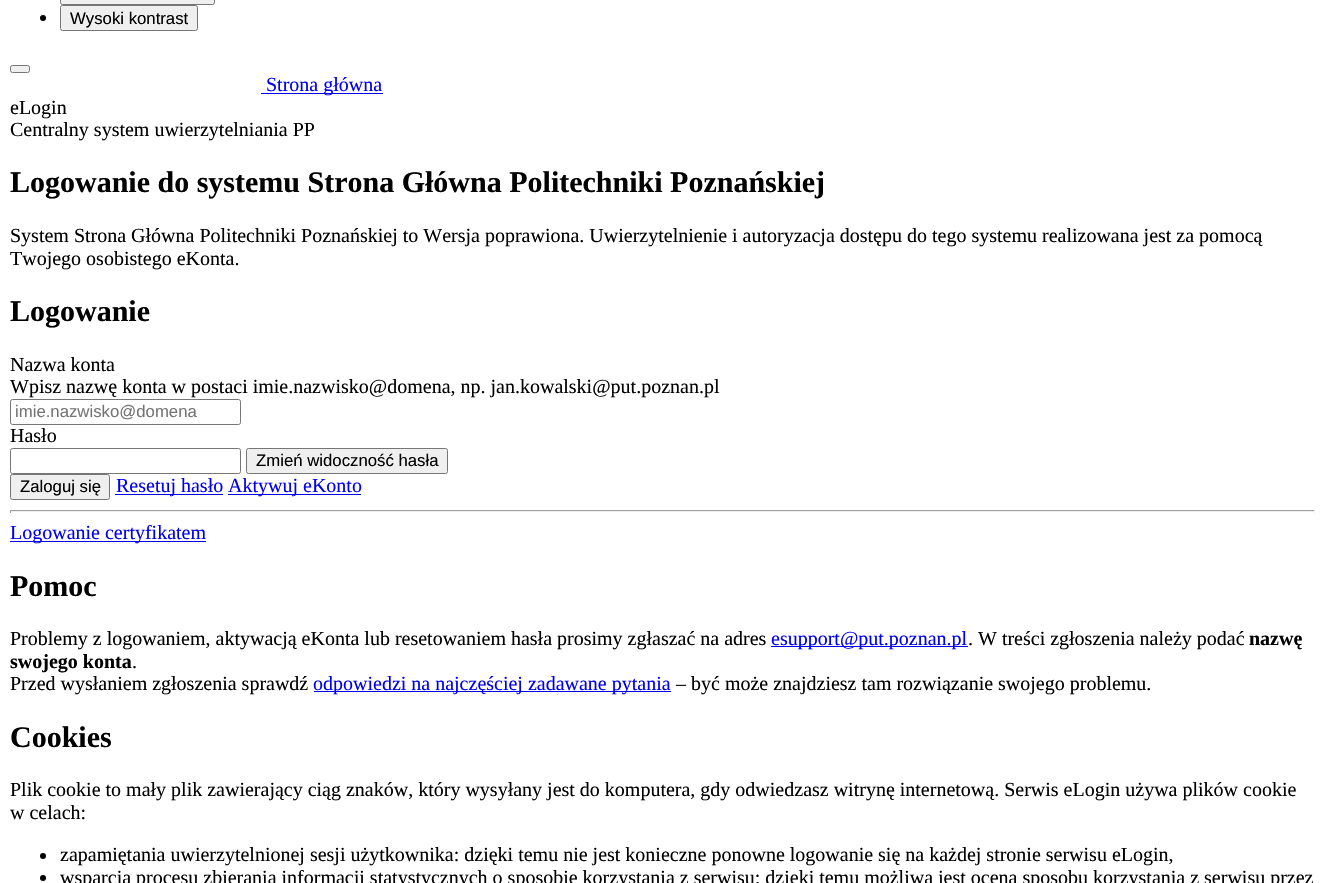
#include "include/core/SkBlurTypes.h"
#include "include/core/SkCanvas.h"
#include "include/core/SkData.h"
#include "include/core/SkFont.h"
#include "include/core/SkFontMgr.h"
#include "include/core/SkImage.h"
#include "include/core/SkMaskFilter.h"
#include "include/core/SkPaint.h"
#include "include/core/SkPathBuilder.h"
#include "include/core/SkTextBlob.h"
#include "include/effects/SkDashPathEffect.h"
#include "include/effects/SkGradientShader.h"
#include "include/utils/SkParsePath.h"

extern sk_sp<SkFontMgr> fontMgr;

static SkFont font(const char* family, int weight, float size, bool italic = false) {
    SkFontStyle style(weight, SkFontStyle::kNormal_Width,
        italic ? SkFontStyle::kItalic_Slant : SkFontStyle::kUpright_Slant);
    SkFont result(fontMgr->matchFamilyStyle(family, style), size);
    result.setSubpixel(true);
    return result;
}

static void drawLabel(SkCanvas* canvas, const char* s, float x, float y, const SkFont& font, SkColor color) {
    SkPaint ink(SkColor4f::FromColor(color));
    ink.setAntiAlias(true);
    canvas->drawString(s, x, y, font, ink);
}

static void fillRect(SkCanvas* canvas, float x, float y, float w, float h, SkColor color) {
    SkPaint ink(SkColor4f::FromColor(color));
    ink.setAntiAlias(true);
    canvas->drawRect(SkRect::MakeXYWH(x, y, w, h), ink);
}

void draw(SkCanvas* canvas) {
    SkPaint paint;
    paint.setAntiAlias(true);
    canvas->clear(0xFFFFFFFF);
    paint.setColor(0xFFEFEFEF);
    canvas->drawRoundRect(SkRect::MakeXYWH(60.5f, -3.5f, 154, 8), 2, 2, paint);
    paint.setStroke(true);
    paint.setStrokeWidth(1);
    paint.setColor(0xFF767676);
    canvas->drawRoundRect(SkRect::MakeXYWH(60.5f, -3.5f, 154, 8), 2, 2, paint);
    paint.setStroke(false);
    paint.setColor(0xFF000000);
    canvas->drawCircle(43, 18, 3, paint);
    paint.setColor(0xFFEFEFEF);
    canvas->drawRoundRect(SkRect::MakeXYWH(60.5f, 5.5f, 137, 25), 2, 2, paint);
    paint.setStroke(true);
    paint.setColor(0xFF767676);
    canvas->drawRoundRect(SkRect::MakeXYWH(60.5f, 5.5f, 137, 25), 2, 2, paint);
    SkFont font1 = font("Liberation Sans", 400, 16.75f);
    drawLabel(canvas, "Wysoki kontrast", 70, 24, font1, 0xFF000000);
    paint.setStroke(false);
    paint.setColor(0xFFEFEFEF);
    canvas->drawRoundRect(SkRect::MakeXYWH(10.5f, 65.5f, 19, 7), 2, 2, paint);
    paint.setStroke(true);
    paint.setColor(0xFF767676);
    canvas->drawRoundRect(SkRect::MakeXYWH(10.5f, 65.5f, 19, 7), 2, 2, paint);
    fillRect(canvas, 261, 93, 122, 1, 0xFF0000EE);
    SkFont font2 = font("Liberation Serif", 400, 20);
    drawLabel(canvas, "Strona główna", 266, 91, font2, 0xFF0000EE);
    drawLabel(canvas, "eLogin", 10, 114, font2, 0xFF000000);
    drawLabel(canvas, "Centralny system uwierzytelniania PP", 10, 136, font2, 0xFF000000);
    SkFont font3 = font("Liberation Serif", 700, 30);
    drawLabel(canvas, "Logowanie do systemu Strona Główna Politechniki Poznańskiej", 10, 192, font3, 0xFF000000);
    drawLabel(canvas, "System Strona Główna Politechniki Poznańskiej to Wersja poprawiona. Uwierzytelnienie i autoryzacja dostępu do tego systemu realizowana jest za pomocą", 10, 242, font2, 0xFF000000);
    drawLabel(canvas, "Twojego osobistego eKonta.", 10, 265, font2, 0xFF000000);
    drawLabel(canvas, "Logowanie", 10, 321, font3, 0xFF000000);
    drawLabel(canvas, "Nazwa konta", 10, 371, font2, 0xFF000000);
    drawLabel(canvas, "Wpisz nazwę konta w postaci imie.nazwisko@domena, np. jan.kowalski@put.poznan.pl", 10, 393, font2, 0xFF000000);
    canvas->drawRoundRect(SkRect::MakeXYWH(10.5f, 399.5f, 230, 25), 2, 2, paint);
    drawLabel(canvas, "imie.nazwisko@domena", 15, 417, font1, 0xFF757575);
    drawLabel(canvas, "Hasło", 10, 442, font2, 0xFF000000);
    canvas->drawRoundRect(SkRect::MakeXYWH(10.5f, 448.5f, 230, 25), 2, 2, paint);
    paint.setStroke(false);
    paint.setColor(0xFFEFEFEF);
    canvas->drawRoundRect(SkRect::MakeXYWH(246.5f, 448.5f, 201, 25), 2, 2, paint);
    paint.setStroke(true);
    paint.setColor(0xFF767676);
    canvas->drawRoundRect(SkRect::MakeXYWH(246.5f, 448.5f, 201, 25), 2, 2, paint);
    drawLabel(canvas, "Zmień widoczność hasła", 256, 466, font1, 0xFF000000);
    paint.setStroke(false);
    paint.setColor(0xFFEFEFEF);
    canvas->drawRoundRect(SkRect::MakeXYWH(10.5f, 474.5f, 99, 25), 2, 2, paint);
    paint.setStroke(true);
    paint.setColor(0xFF767676);
    canvas->drawRoundRect(SkRect::MakeXYWH(10.5f, 474.5f, 99, 25), 2, 2, paint);
    drawLabel(canvas, "Zaloguj się", 20, 492, font1, 0xFF000000);
    fillRect(canvas, 115, 494, 108, 1, 0xFF0000EE);
    drawLabel(canvas, "Resetuj hasło", 116, 492, font2, 0xFF0000EE);
    fillRect(canvas, 228, 494, 133, 1, 0xFF0000EE);
    drawLabel(canvas, "Aktywuj eKonto", 228, 492, font2, 0xFF0000EE);
    fillRect(canvas, 10, 510, 1305, 1, 0xFF9F9F9F);
    fillRect(canvas, 1314, 510, 1, 3, 0xFFEEEEEE);
    fillRect(canvas, 10, 511, 1305, 1, 0xFFEEEEEE);
    fillRect(canvas, 10, 510, 1, 3, 0xFF9F9F9F);
    fillRect(canvas, 10, 541, 196, 1, 0xFF0000EE);
    drawLabel(canvas, "Logowanie certyfikatem", 10, 539, font2, 0xFF0000EE);
    drawLabel(canvas, "Pomoc", 10, 596, font3, 0xFF000000);
    drawLabel(canvas, "Problemy z logowaniem, aktywacją eKonta lub resetowaniem hasła prosimy zgłaszać na adres", 10, 645, font2, 0xFF000000);
    fillRect(canvas, 771, 646, 197, 1, 0xFF0000EE);
    drawLabel(canvas, "esupport@put.poznan.pl", 771, 645, font2, 0xFF0000EE);
    drawLabel(canvas, ". W treści zgłoszenia należy podać", 968, 645, font2, 0xFF000000);
    SkFont font4 = font("Liberation Serif", 700, 20);
    drawLabel(canvas, "nazwę", 1249, 645, font4, 0xFF000000);
    drawLabel(canvas, "swojego konta", 10, 668, font4, 0xFF000000);
    drawLabel(canvas, ".", 132, 668, font2, 0xFF000000);
    drawLabel(canvas, "Przed wysłaniem zgłoszenia sprawdź", 10, 690, font2, 0xFF000000);
    fillRect(canvas, 314, 691, 357, 1, 0xFF0000EE);
    drawLabel(canvas, "odpowiedzi na najczęściej zadawane pytania", 313, 690, font2, 0xFF0000EE);
    drawLabel(canvas, "– być może znajdziesz tam rozwiązanie swojego problemu.", 676, 690, font2, 0xFF000000);
    drawLabel(canvas, "Cookies", 10, 747, font3, 0xFF000000);
    drawLabel(canvas, "Plik cookie to mały plik zawierający ciąg znaków, który wysyłany jest do komputera, gdy odwiedzasz witrynę internetową. Serwis eLogin używa plików cookie", 10, 796, font2, 0xFF000000);
    drawLabel(canvas, "w celach:", 10, 819, font2, 0xFF000000);
    paint.setStroke(false);
    paint.setColor(0xFF000000);
    canvas->drawCircle(43, 856, 3, paint);
    drawLabel(canvas, "zapamiętania uwierzytelnionej sesji użytkownika: dzięki temu nie jest konieczne ponowne logowanie się na każdej stronie serwisu eLogin,", 60, 861, font2, 0xFF000000);
    canvas->drawCircle(43, 878, 3, paint);
    drawLabel(canvas, "wsparcia procesu zbierania informacji statystycznych o sposobie korzystania z serwisu: dzięki temu możliwa jest ocena sposobu korzystania z serwisu przez", 60, 884, font2, 0xFF000000);
}
